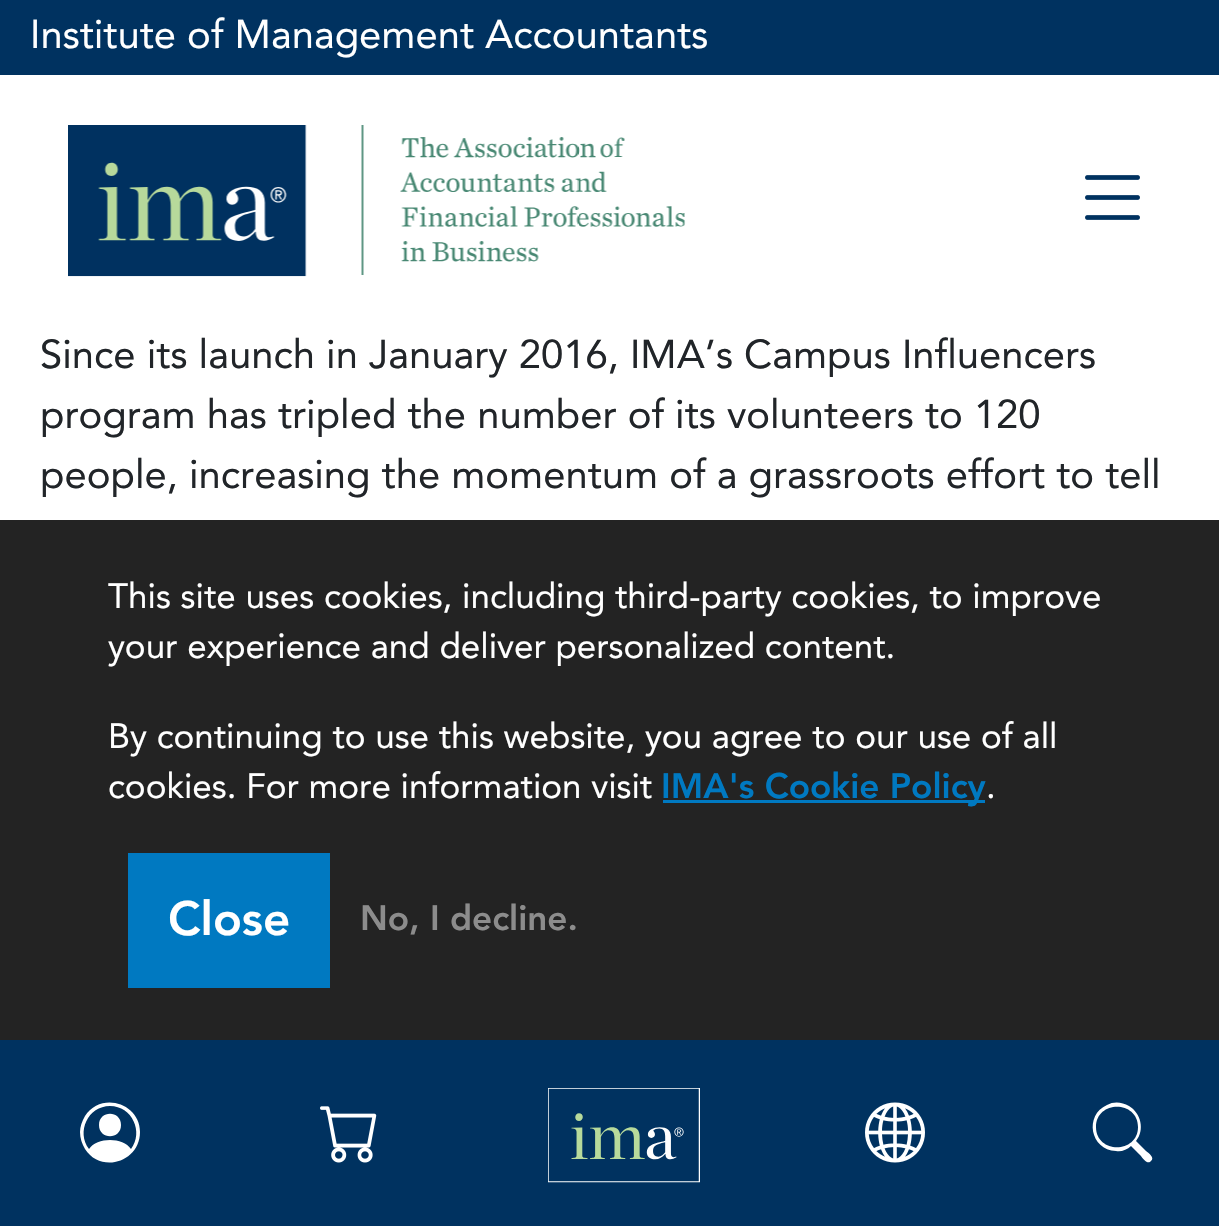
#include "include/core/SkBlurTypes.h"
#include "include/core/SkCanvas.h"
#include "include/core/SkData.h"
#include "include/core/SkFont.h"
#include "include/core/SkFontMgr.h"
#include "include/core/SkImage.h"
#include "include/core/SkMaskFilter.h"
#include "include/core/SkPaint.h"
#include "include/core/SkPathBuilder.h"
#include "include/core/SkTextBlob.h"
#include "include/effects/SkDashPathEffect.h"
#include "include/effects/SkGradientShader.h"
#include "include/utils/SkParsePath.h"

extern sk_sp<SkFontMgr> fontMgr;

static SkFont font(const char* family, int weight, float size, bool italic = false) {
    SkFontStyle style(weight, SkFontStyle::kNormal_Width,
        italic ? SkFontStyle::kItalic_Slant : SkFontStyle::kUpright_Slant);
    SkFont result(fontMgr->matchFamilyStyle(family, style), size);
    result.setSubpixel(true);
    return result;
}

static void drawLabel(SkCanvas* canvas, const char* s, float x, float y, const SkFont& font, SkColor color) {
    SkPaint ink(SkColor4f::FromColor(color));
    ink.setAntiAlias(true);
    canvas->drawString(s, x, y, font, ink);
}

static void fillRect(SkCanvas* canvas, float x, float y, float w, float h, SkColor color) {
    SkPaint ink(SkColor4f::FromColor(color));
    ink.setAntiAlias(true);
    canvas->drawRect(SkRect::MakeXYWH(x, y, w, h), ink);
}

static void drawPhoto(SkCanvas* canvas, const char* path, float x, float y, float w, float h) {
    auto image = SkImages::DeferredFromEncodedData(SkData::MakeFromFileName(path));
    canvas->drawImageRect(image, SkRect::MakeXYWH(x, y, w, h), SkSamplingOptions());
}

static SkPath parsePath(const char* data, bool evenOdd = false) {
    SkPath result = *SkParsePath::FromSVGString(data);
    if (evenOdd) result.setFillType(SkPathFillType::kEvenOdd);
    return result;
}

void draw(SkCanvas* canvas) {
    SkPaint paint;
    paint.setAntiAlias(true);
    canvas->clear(0xFFFFFFFF);
    fillRect(canvas, 0, 0, 1219, 75, 0xFF003260);
    SkFont font1 = font("Avenir", 400, 40);
    drawLabel(canvas, "Institute of Management Accountants", 30, 48, font1, 0xFFFFFFFF);
    drawPhoto(canvas, "assets/img1.png", 68, 125, 618, 152);
    drawPhoto(canvas, "assets/img2.png", 1085, 175, 55, 45);
    fillRect(canvas, 0, 520, 1219, 520, 0xFF232323);
    SkFont font2 = font("Avenir", 400, 35);
    drawLabel(canvas, "This site uses cookies, including third-party cookies, to improve", 108, 608, font2, 0xFFFFFFFF);
    drawLabel(canvas, "your experience and deliver personalized content.", 108, 658, font2, 0xFFFFFFFF);
    drawLabel(canvas, "By continuing to use this website, you agree to our use of all", 108, 748, font2, 0xFFFFFFFF);
    drawLabel(canvas, "cookies. For more information visit", 108, 798, font2, 0xFFFFFFFF);
    fillRect(canvas, 663, 800, 322, 3, 0xFF0079C1);
    SkFont font3 = font("Avenir", 900, 35);
    drawLabel(canvas, "IMA's Cookie Policy", 661, 798, font3, 0xFF0079C1);
    drawLabel(canvas, ".", 986, 798, font2, 0xFFFFFFFF);
    fillRect(canvas, 128, 853, 202, 135, 0xFF0079C1);
    SkFont font4 = font("Avenir", 900, 47.5f);
    drawLabel(canvas, "Close", 168, 935, font4, 0xFFFFFFFF);
    drawLabel(canvas, "No, I decline.", 360, 930, font3, 0xFF8C8C8C);
    drawLabel(canvas, "Since its launch in January 2016, IMA’s Campus Influencers", 40, 368, font1, 0xFF212529);
    drawLabel(canvas, "program has tripled the number of its volunteers to 120", 40, 428, font1, 0xFF212529);
    drawLabel(canvas, "people, increasing the momentum of a grassroots effort to tell", 40, 488, font1, 0xFF212529);
    fillRect(canvas, 0, 1040, 1219, 186, 0xFF003260);
    paint.setColor(0xFFFFFFFF);
    canvas->drawPath(parsePath("M121 1125C121 1140 99 1140 99 1125C99 1110 121 1110 121 1125ZM80 1132C80 1127 82 1121 85 1116C101 1091 140 1103 140 1132C140 1162 101 1174 85 1149C82 1144 80 1138 80 1132ZM110 1106C88 1106 76 1132 89 1149C97 1137 123 1137 131 1149C144 1132 132 1106 110 1106Z"), paint);
    drawPhoto(canvas, "assets/img3.png", 320, 1106, 57, 57);
    drawPhoto(canvas, "assets/img4.png", 548, 1088, 152, 95);
    drawPhoto(canvas, "assets/img5.png", 865, 1102, 60, 61);
    canvas->drawPath(parsePath("M1136 1141C1145 1130 1141 1113 1129 1106C1122 1102 1114 1101 1107 1105C1084 1115 1090 1150 1116 1151C1121 1152 1127 1150 1131 1146L1141 1156C1143 1159 1148 1165 1151 1161C1155 1158 1149 1153 1146 1151ZM1138 1127C1138 1154 1096 1154 1096 1127C1096 1100 1138 1100 1138 1127Z"), paint);
}
